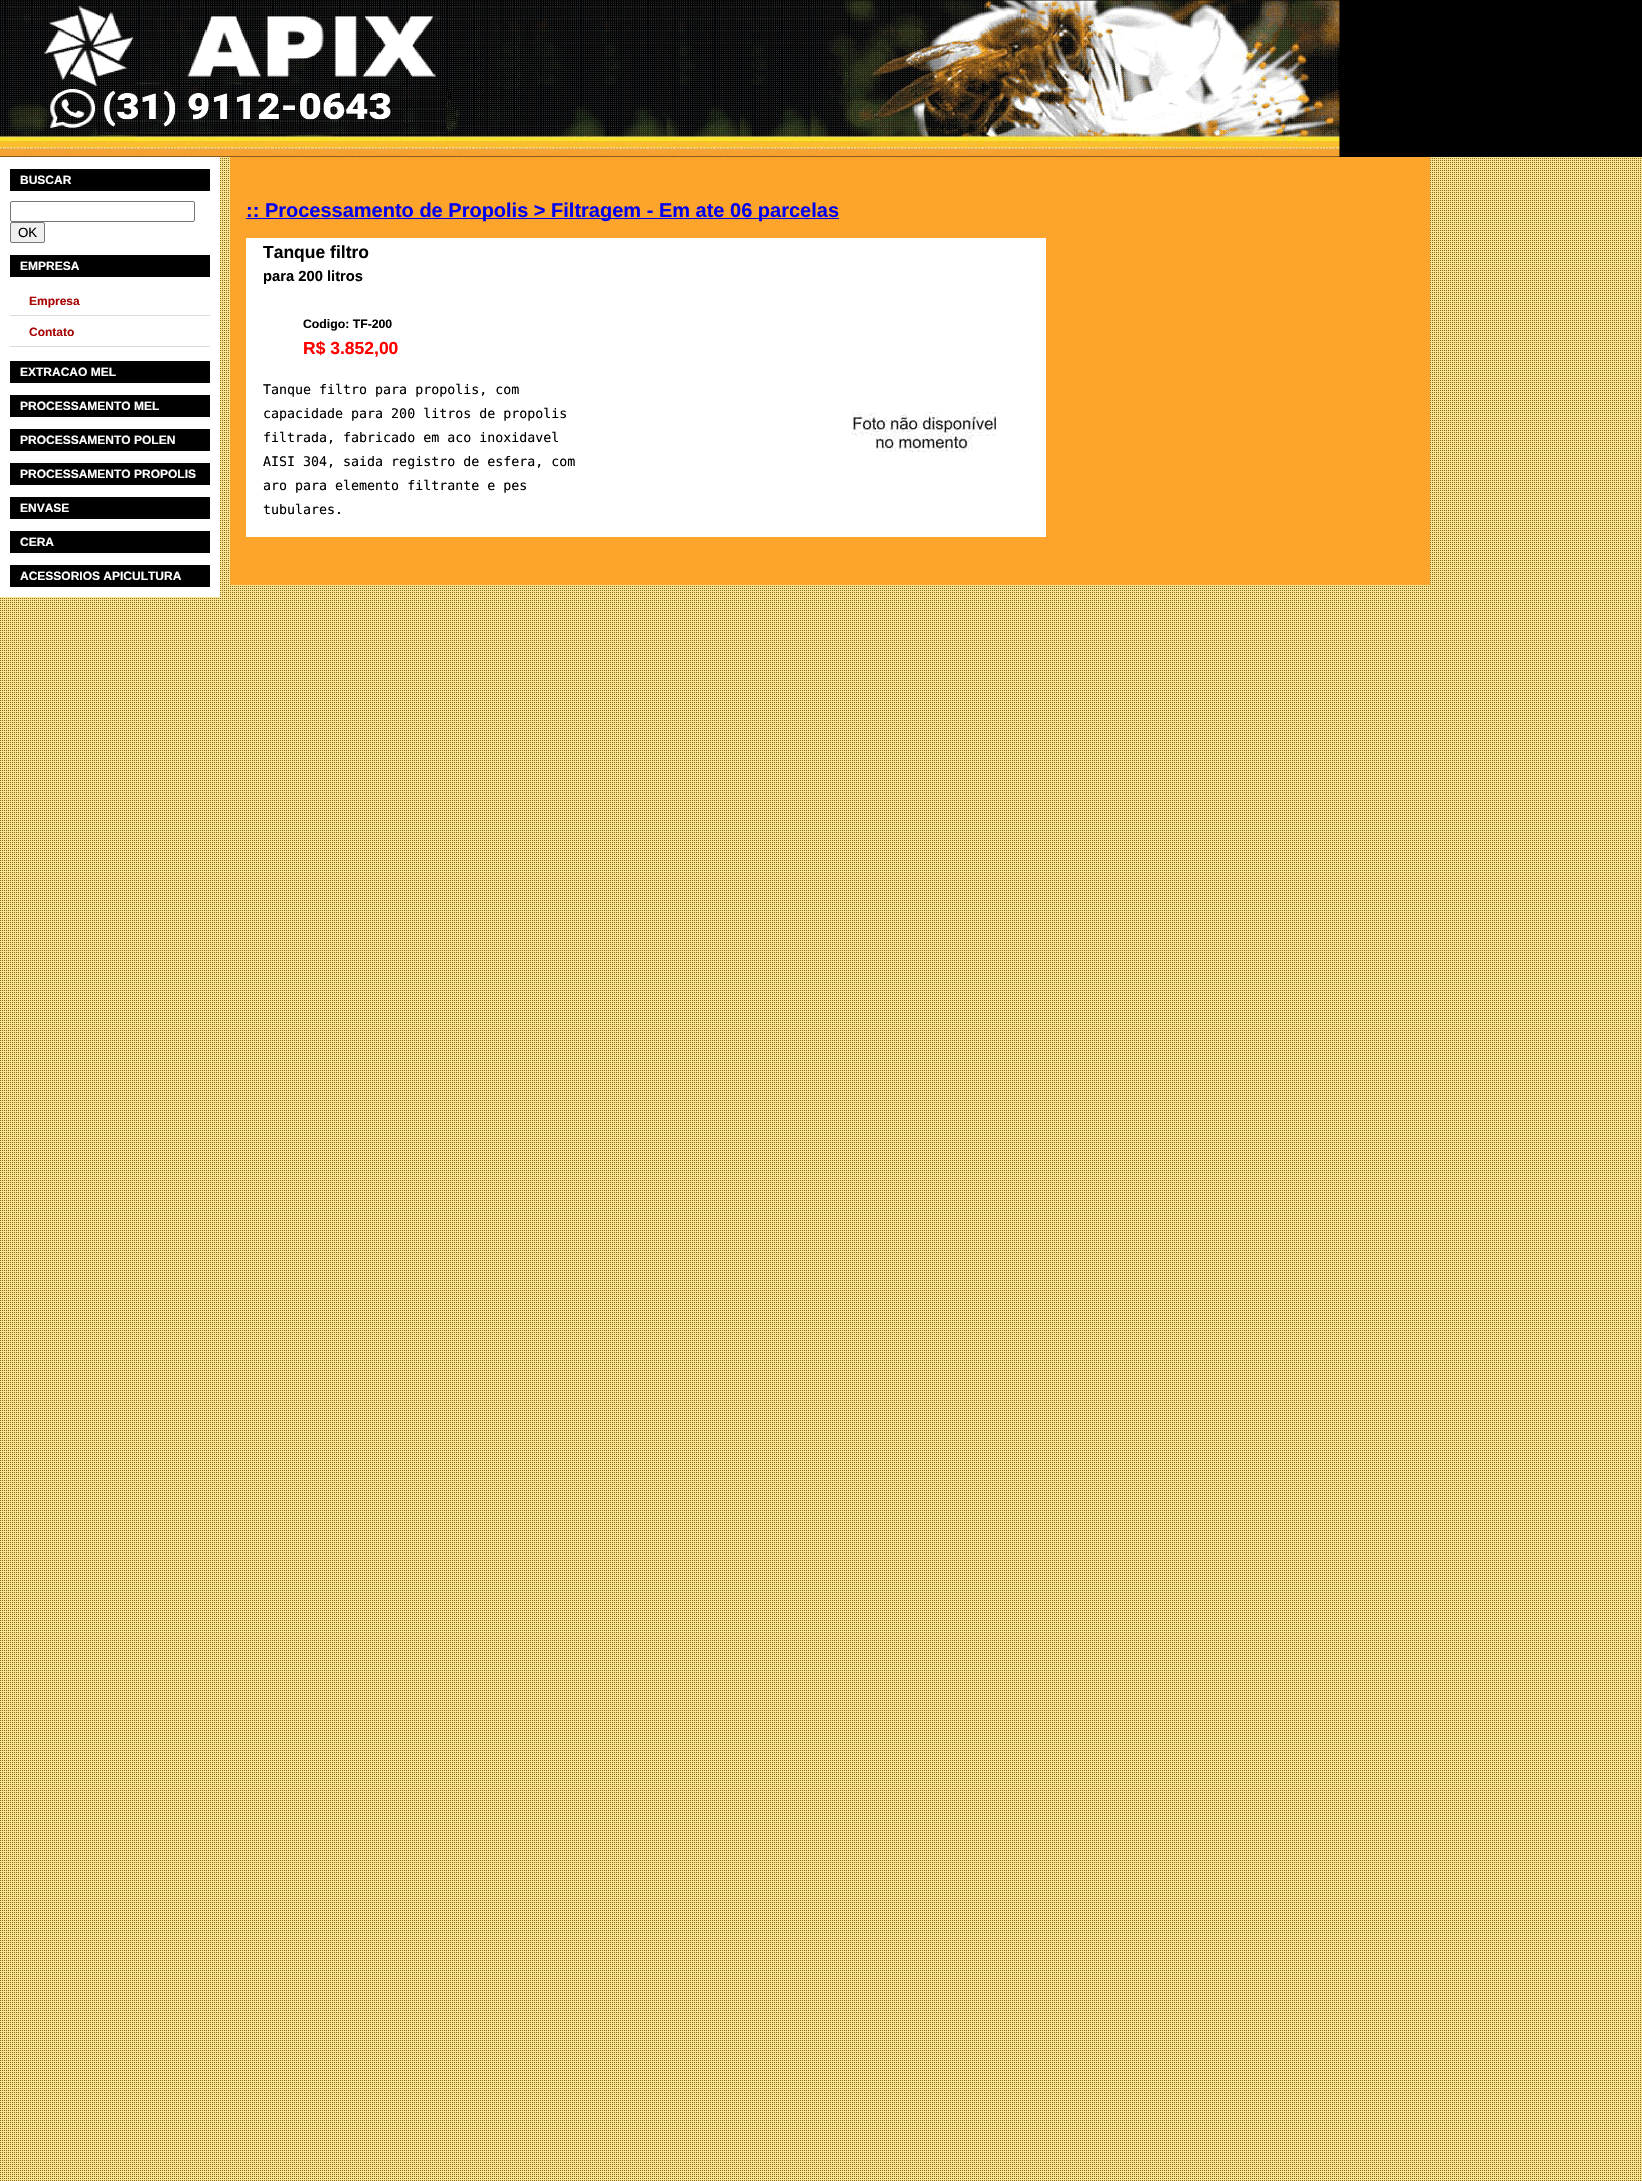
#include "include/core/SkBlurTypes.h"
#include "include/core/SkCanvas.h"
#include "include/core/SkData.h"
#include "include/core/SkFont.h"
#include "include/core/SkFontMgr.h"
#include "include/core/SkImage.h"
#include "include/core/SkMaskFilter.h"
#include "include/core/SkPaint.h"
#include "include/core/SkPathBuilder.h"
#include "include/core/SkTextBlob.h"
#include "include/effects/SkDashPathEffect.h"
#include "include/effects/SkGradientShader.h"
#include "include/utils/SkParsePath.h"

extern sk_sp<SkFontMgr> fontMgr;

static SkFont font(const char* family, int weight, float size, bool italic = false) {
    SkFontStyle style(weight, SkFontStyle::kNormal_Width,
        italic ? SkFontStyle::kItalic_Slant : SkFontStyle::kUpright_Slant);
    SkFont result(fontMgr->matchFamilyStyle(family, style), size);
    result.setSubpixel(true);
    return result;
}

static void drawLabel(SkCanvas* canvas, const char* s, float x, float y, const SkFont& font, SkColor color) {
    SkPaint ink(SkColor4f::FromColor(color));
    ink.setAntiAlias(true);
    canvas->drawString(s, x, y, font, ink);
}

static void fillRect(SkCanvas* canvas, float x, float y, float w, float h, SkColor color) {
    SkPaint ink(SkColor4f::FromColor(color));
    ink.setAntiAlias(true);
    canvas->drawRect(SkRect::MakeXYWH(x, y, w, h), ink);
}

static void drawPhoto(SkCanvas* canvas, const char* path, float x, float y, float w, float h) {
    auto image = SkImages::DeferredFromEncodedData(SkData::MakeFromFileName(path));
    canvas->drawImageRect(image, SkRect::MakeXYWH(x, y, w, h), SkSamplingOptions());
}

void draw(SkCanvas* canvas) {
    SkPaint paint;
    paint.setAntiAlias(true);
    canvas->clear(0xFFFFFFFF);
    drawPhoto(canvas, "assets/img1.png", 0, 157, 1642, 2024);
    fillRect(canvas, 0, 0, 1642, 157, 0xFF000000);
    drawPhoto(canvas, "assets/img2.png", 0, 0, 1340, 157);
    fillRect(canvas, 0, 157, 220, 440, 0xFFFFFFFF);
    fillRect(canvas, 10, 169, 200, 22, 0xFF000000);
    SkFont font1 = font("Liberation Sans", 700, 12);
    drawLabel(canvas, "BUSCAR", 20, 184, font1, 0xFFFFFFFF);
    paint.setStroke(true);
    paint.setStrokeWidth(1);
    paint.setColor(0xFF767676);
    canvas->drawRoundRect(SkRect::MakeXYWH(10.5f, 201.5f, 184, 20), 1.5f, 1.5f, paint);
    paint.setStroke(false);
    paint.setColor(0xFFEFEFEF);
    canvas->drawRoundRect(SkRect::MakeXYWH(10.5f, 222.5f, 34, 20), 1.5f, 1.5f, paint);
    paint.setStroke(true);
    paint.setColor(0xFF767676);
    canvas->drawRoundRect(SkRect::MakeXYWH(10.5f, 222.5f, 34, 20), 1.5f, 1.5f, paint);
    SkFont font2 = font("Liberation Sans", 400, 13.3f);
    drawLabel(canvas, "OK", 18, 237, font2, 0xFF000000);
    fillRect(canvas, 10, 255, 200, 22, 0xFF000000);
    drawLabel(canvas, "EMPRESA", 20, 270, font1, 0xFFFFFFFF);
    fillRect(canvas, 10, 315, 200, 1, 0xFFDADADA);
    drawLabel(canvas, "Empresa", 29, 305, font1, 0xFFA70303);
    fillRect(canvas, 10, 346, 200, 1, 0xFFDADADA);
    drawLabel(canvas, "Contato", 29, 336, font1, 0xFFA70303);
    fillRect(canvas, 10, 361, 200, 22, 0xFF000000);
    drawLabel(canvas, "EXTRACAO MEL", 20, 376, font1, 0xFFFFFFFF);
    fillRect(canvas, 10, 395, 200, 22, 0xFF000000);
    drawLabel(canvas, "PROCESSAMENTO MEL", 20, 410, font1, 0xFFFFFFFF);
    fillRect(canvas, 10, 429, 200, 22, 0xFF000000);
    drawLabel(canvas, "PROCESSAMENTO POLEN", 20, 444, font1, 0xFFFFFFFF);
    fillRect(canvas, 10, 463, 200, 22, 0xFF000000);
    drawLabel(canvas, "PROCESSAMENTO PROPOLIS", 20, 478, font1, 0xFFFFFFFF);
    fillRect(canvas, 10, 497, 200, 22, 0xFF000000);
    drawLabel(canvas, "ENVASE", 20, 512, font1, 0xFFFFFFFF);
    fillRect(canvas, 10, 531, 200, 22, 0xFF000000);
    drawLabel(canvas, "CERA", 20, 546, font1, 0xFFFFFFFF);
    fillRect(canvas, 10, 565, 200, 22, 0xFF000000);
    drawLabel(canvas, "ACESSORIOS APICULTURA", 20, 580, font1, 0xFFFFFFFF);
    fillRect(canvas, 230, 157, 1200, 428, 0xFFFDA42D);
    fillRect(canvas, 246, 218, 593, 1, 0xFF0000EE);
    SkFont font3 = font("Liberation Sans", 700, 20);
    drawLabel(canvas, ":: Processamento de Propolis > Filtragem - Em ate 06 parcelas", 246, 217, font3, 0xFF0000EE);
    fillRect(canvas, 246, 238, 800, 299, 0xFFFFFFFF);
    SkFont font4 = font("Liberation Sans", 700, 17.5f);
    drawLabel(canvas, "Tanque filtro", 263, 258, font4, 0xFF000000);
    SkFont font5 = font("Liberation Sans", 700, 14.75f);
    drawLabel(canvas, "para 200 litros", 263, 281, font5, 0xFF000000);
    SkFont font6 = font("Liberation Sans", 700, 12.25f);
    drawLabel(canvas, "Codigo: TF-200", 303, 328, font6, 0xFF000000);
    drawLabel(canvas, "R$ 3.852,00", 303, 354, font4, 0xFFFF0000);
    SkFont font7 = font("DejaVu Sans Mono", 400, 13.3f);
    drawLabel(canvas, "Tanque filtro para propolis, com", 263, 394, font7, 0xFF000000);
    drawLabel(canvas, "capacidade para 200 litros de propolis", 263, 418, font7, 0xFF000000);
    drawLabel(canvas, "filtrada, fabricado em aco inoxidavel", 263, 442, font7, 0xFF000000);
    drawLabel(canvas, "AISI 304, saida registro de esfera, com", 263, 466, font7, 0xFF000000);
    drawLabel(canvas, "aro para elemento filtrante e pes", 263, 490, font7, 0xFF000000);
    drawLabel(canvas, "tubulares.", 263, 514, font7, 0xFF000000);
    drawPhoto(canvas, "assets/img3.png", 852, 412, 144, 40);
}
